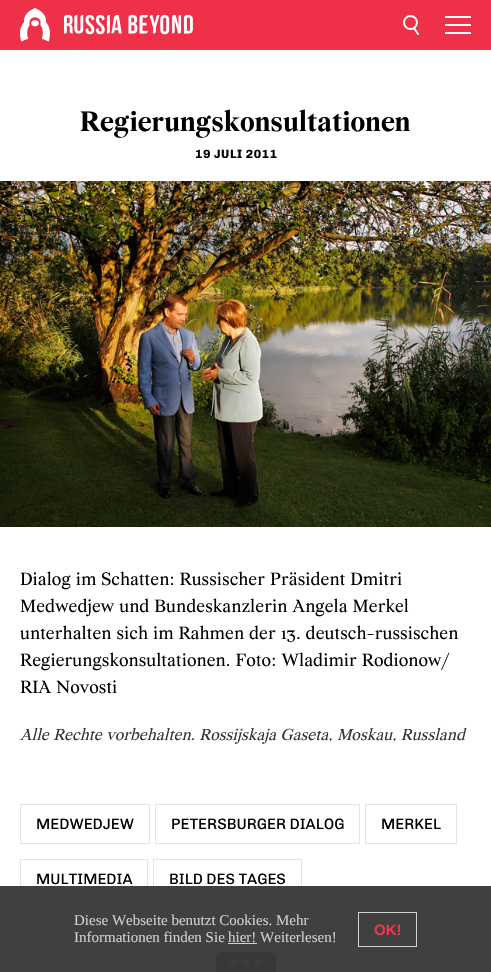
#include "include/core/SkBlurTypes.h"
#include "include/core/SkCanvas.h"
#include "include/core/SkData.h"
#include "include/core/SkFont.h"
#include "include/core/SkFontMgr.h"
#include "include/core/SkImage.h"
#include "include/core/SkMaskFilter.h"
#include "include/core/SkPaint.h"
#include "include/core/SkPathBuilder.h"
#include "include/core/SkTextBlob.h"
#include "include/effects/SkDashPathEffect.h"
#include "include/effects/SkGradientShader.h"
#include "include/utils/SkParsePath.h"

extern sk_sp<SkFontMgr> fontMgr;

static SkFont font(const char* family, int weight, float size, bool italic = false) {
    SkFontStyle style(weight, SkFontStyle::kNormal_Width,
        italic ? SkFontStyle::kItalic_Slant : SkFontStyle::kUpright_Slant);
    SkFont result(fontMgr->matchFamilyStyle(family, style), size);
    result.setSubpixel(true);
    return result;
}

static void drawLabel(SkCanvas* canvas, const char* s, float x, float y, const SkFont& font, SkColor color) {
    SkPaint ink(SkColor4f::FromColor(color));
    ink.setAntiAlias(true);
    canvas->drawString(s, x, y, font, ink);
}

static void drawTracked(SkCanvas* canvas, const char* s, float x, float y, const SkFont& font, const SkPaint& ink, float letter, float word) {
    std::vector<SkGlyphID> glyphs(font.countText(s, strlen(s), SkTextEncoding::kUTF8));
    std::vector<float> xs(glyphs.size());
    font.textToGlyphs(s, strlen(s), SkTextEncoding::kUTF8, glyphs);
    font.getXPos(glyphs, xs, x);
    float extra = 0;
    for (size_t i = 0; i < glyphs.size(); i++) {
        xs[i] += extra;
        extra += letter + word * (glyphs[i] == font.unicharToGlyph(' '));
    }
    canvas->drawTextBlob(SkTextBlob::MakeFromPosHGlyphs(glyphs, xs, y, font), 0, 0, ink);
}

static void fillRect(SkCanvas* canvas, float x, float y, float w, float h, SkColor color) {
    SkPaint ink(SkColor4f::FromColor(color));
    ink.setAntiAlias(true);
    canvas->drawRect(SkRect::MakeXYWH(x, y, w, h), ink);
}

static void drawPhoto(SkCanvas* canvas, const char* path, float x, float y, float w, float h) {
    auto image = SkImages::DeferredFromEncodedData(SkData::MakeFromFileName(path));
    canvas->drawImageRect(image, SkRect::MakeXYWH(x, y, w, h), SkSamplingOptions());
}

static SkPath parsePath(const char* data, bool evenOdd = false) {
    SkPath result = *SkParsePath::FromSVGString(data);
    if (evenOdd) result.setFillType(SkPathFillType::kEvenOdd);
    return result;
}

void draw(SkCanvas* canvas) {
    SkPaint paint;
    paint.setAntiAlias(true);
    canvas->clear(0xFFFFFFFF);
    fillRect(canvas, 0, 0, 491, 50, 0xFFEE3048);
    drawPhoto(canvas, "assets/img1.png", 20, 8, 30, 34);
    drawPhoto(canvas, "assets/img2.png", 64, 15, 129, 20);
    paint.setStroke(true);
    paint.setStrokeWidth(2);
    paint.setColor(0xFFFFFFFF);
    canvas->drawCircle(410.5f, 22.5f, 6.5f, paint);
    paint.setStrokeCap(SkPaint::kRound_Cap);
    canvas->drawPath(parsePath("M414 28L418 34"), paint);
    drawPhoto(canvas, "assets/img3.png", 445, 16, 26, 18);
    SkFont font1 = font("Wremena", 700, 30);
    drawLabel(canvas, "Regierungskonsultationen", 80, 131, font1, 0xFF000000);
    SkFont font2 = font("Chivo", 700, 12);
    paint.setStroke(false);
    paint.setColor(0xFF000000);
    drawTracked(canvas, "19 JULI 2011", 195, 158, font2, paint, 0.6f, 0);
    drawPhoto(canvas, "assets/img4.png", 0, 181, 491, 346);
    SkFont font3 = font("Wremena", 400, 19);
    drawLabel(canvas, "Dialog im Schatten: Russischer Präsident Dmitri", 20, 585, font3, 0xFF000000);
    drawLabel(canvas, "Medwedjew und Bundeskanzlerin Angela Merkel", 20, 612, font3, 0xFF000000);
    drawLabel(canvas, "unterhalten sich im Rahmen der 13. deutsch-russischen", 20, 639, font3, 0xFF000000);
    drawLabel(canvas, "Regierungskonsultationen. Foto: Wladimir Rodionow/", 20, 666, font3, 0xFF000000);
    drawLabel(canvas, "RIA Novosti", 20, 693, font3, 0xFF000000);
    SkFont font4 = font("Wremena", 400, 17, true);
    drawLabel(canvas, "Alle Rechte vorbehalten. Rossijskaja Gaseta, Moskau, Russland", 20, 740, font4, 0xFF333333);
    paint.setStroke(true);
    paint.setStrokeWidth(1);
    paint.setStrokeCap(SkPaint::kButt_Cap);
    paint.setColor(0xFFE4E4E4);
    canvas->drawRect(SkRect::MakeXYWH(20.5f, 804.5f, 129, 39), paint);
    SkFont font5 = font("Chivo", 400, 15);
    drawLabel(canvas, "MEDWEDJEW", 36, 829, font5, 0xFF000000);
    canvas->drawRect(SkRect::MakeXYWH(155.5f, 804.5f, 204, 39), paint);
    drawLabel(canvas, "PETERSBURGER DIALOG", 171, 829, font5, 0xFF000000);
    canvas->drawRect(SkRect::MakeXYWH(365.5f, 804.5f, 91, 39), paint);
    drawLabel(canvas, "MERKEL", 381, 829, font5, 0xFF000000);
    canvas->drawRect(SkRect::MakeXYWH(20.5f, 859.5f, 127, 39), paint);
    drawLabel(canvas, "MULTIMEDIA", 36, 884, font5, 0xFF000000);
    canvas->drawRect(SkRect::MakeXYWH(153.5f, 859.5f, 148, 39), paint);
    drawLabel(canvas, "BILD DES TAGES", 169, 884, font5, 0xFF000000);
    canvas->drawRect(SkRect::MakeXYWH(20.5f, 914.5f, 204, 39), paint);
    paint.setStroke(false);
    paint.setColor(0xFF000000);
    canvas->drawPath(parsePath("M222 952H270C273.5 952 276 954.5 276 958V972H216V958C216 954.5 218.5 952 222 952Z"), paint);
    paint.setColor(0xFFEE3048);
    canvas->drawCircle(233.5f, 962.5f, 3.5f, paint);
    canvas->drawCircle(245.5f, 962.5f, 3.5f, paint);
    canvas->drawCircle(257.5f, 962.5f, 3.5f, paint);
    fillRect(canvas, 0, 886, 491, 86, 0xF73A3A3A);
    SkFont font6 = font("Liberation Serif", 400, 15);
    drawLabel(canvas, "Diese Webseite benutzt Cookies. Mehr", 74, 925, font6, 0xFFCDCDCD);
    drawLabel(canvas, "Informationen finden Sie", 74, 942, font6, 0xFFCDCDCD);
    drawLabel(canvas, "hier! Weiterlesen!", 228, 942, font6, 0xFFCDCDCD);
    fillRect(canvas, 228, 943, 29, 1, 0xFFD2D2D2);
    paint.setStroke(true);
    paint.setColor(0xFFD2D2D2);
    canvas->drawRect(SkRect::MakeXYWH(358.5f, 912.5f, 58, 34), paint);
    SkFont font7 = font("Liberation Sans", 700, 15);
    drawLabel(canvas, "OK!", 374, 935, font7, 0xFFEF364D);
}
